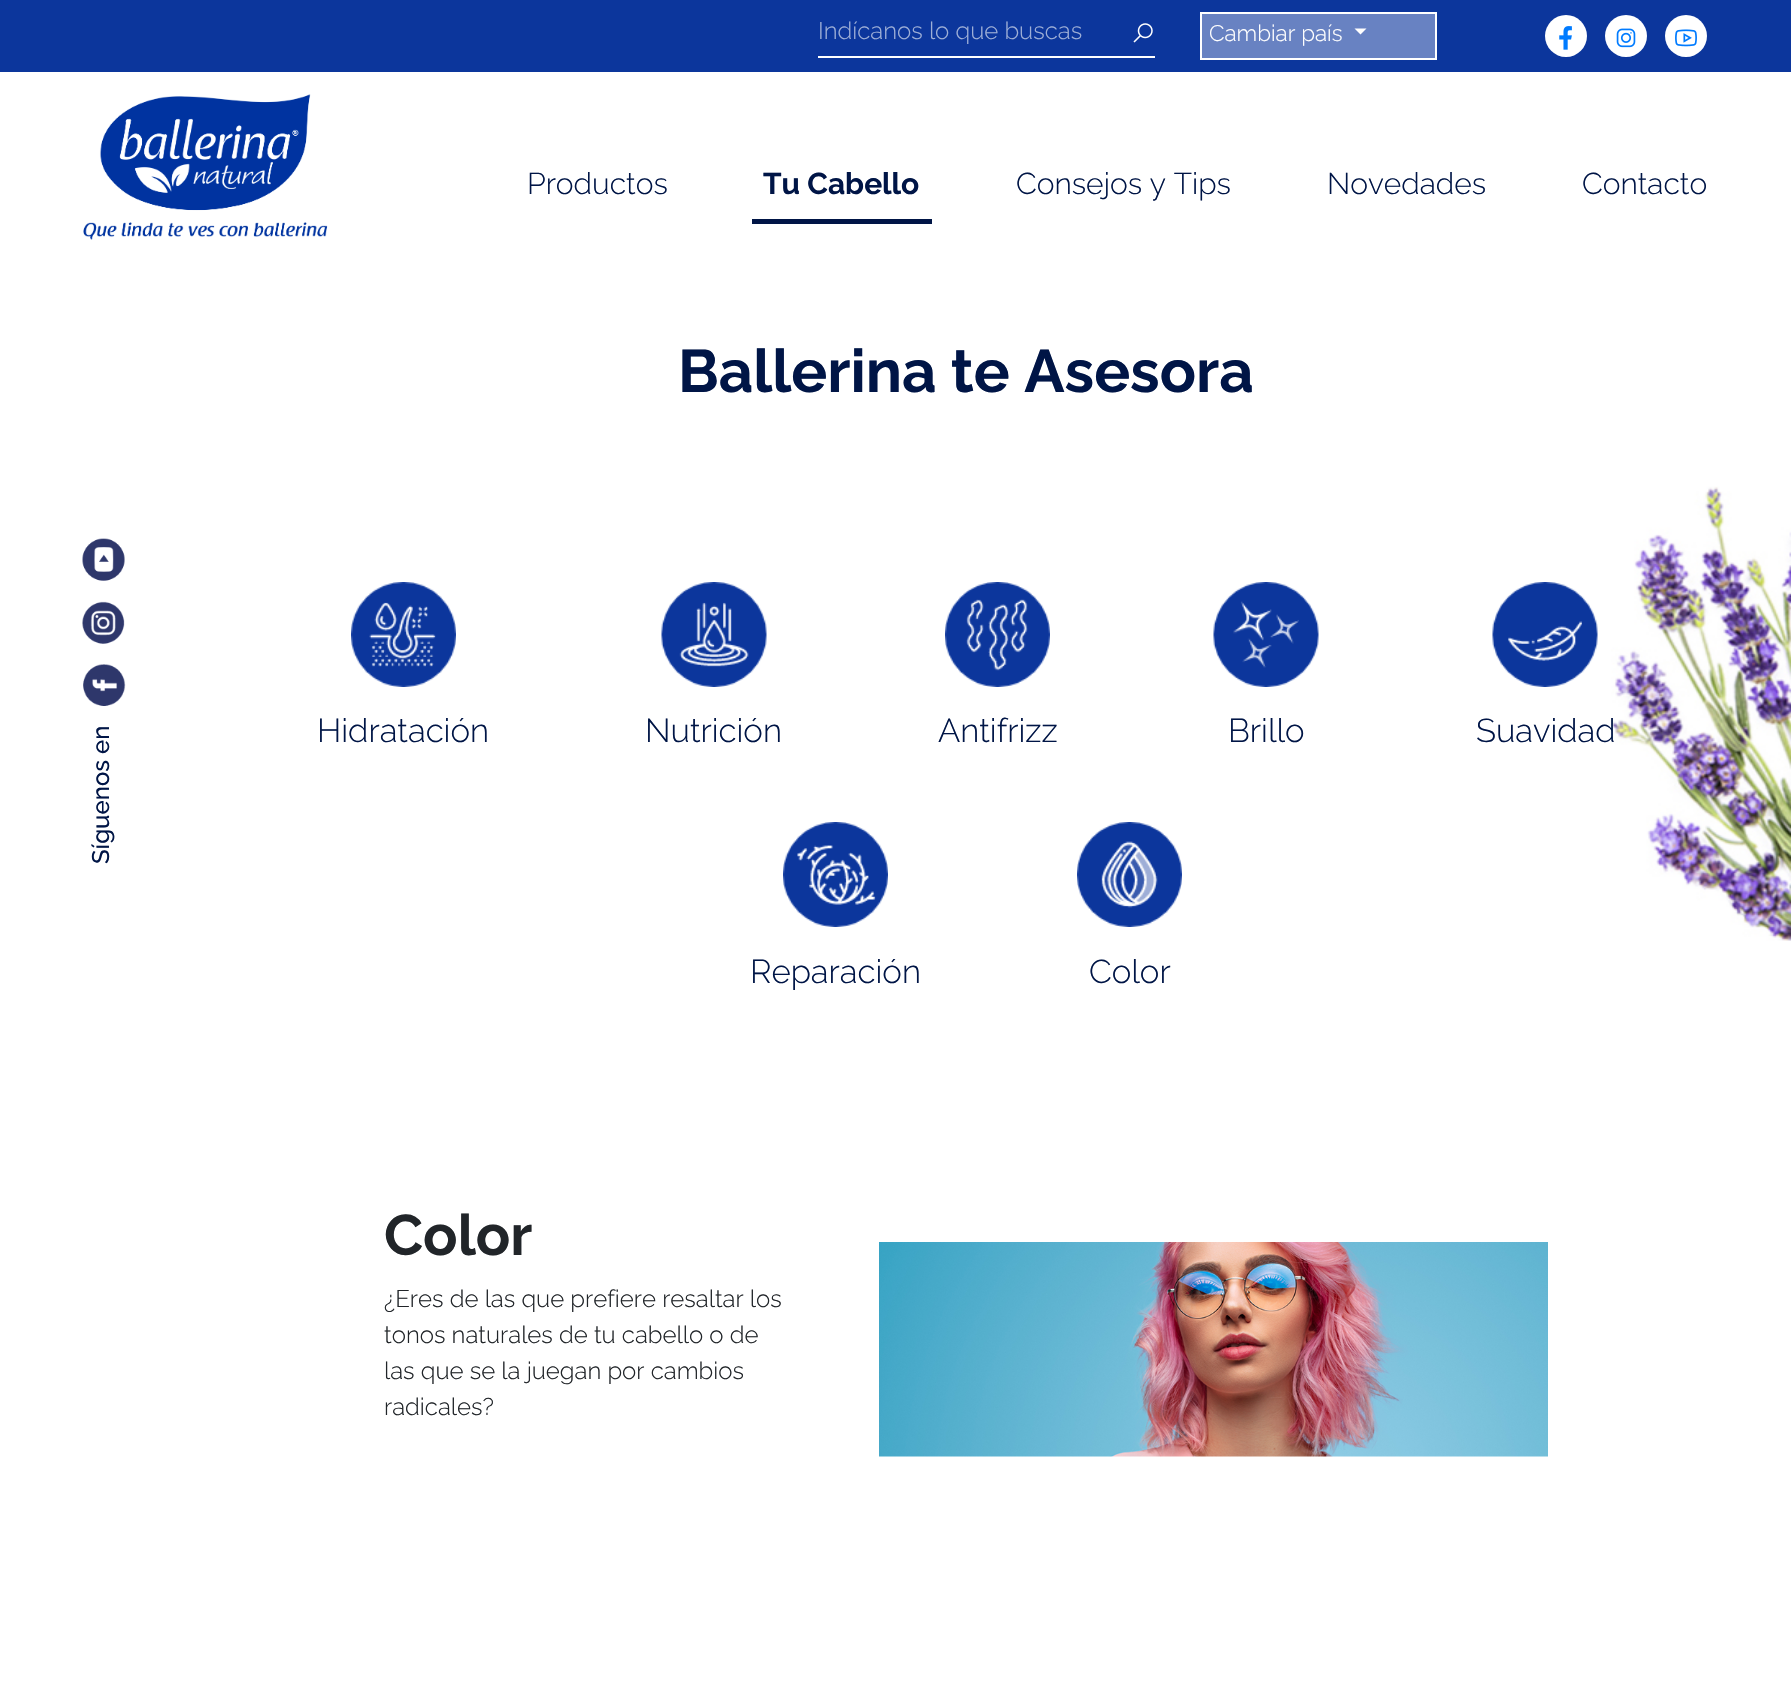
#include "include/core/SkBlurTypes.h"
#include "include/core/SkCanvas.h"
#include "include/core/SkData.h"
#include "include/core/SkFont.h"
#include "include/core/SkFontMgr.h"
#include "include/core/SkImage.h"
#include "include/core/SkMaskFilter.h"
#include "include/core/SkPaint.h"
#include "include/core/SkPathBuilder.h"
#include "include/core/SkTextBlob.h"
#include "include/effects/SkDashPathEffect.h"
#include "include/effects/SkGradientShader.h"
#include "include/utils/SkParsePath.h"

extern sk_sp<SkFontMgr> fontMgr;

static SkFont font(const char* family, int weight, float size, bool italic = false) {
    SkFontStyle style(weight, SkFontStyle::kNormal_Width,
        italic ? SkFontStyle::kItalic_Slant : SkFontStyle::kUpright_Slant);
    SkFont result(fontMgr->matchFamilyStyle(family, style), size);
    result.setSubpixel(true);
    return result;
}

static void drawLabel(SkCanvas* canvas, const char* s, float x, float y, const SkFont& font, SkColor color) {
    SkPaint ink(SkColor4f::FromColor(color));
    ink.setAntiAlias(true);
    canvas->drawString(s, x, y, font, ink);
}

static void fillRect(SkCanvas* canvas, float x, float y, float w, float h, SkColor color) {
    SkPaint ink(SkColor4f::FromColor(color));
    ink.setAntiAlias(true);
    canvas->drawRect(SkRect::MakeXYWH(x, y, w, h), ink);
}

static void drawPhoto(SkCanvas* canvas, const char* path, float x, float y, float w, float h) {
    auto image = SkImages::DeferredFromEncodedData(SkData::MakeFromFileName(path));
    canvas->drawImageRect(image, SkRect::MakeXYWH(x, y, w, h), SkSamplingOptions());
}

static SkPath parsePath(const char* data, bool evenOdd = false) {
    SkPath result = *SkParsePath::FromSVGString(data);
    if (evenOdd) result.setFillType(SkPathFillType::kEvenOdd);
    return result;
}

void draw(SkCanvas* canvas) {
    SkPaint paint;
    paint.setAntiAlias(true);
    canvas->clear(0xFFFFFFFF);
    fillRect(canvas, 0, 0, 1791, 72, 0xFF0C369C);
    fillRect(canvas, 818, 56, 337, 2, 0xFFFFFFFF);
    SkFont font1 = font("Raleway", 300, 24);
    drawLabel(canvas, "Indícanos lo que buscas", 818, 39, font1, 0xFF9EAFD7);
    drawPhoto(canvas, "assets/img1.png", 1133, 23, 20, 20);
    paint.setColor(0xFF6882C2);
    canvas->drawRect(SkRect::MakeXYWH(1201, 13, 235, 46), paint);
    paint.setStroke(true);
    paint.setStrokeWidth(2);
    paint.setColor(0xFFFFFFFF);
    canvas->drawRect(SkRect::MakeXYWH(1201, 13, 235, 46), paint);
    SkFont font2 = font("Raleway", 300, 22.5f);
    drawLabel(canvas, "Cambiar país", 1209, 41, font2, 0xFFFFFFFF);
    paint.setStroke(false);
    canvas->drawPath(parsePath("M1354.5 28.5H1366.5L1360.5 34.5Z"), paint);
    canvas->drawCircle(1566, 36, 21, paint);
    drawPhoto(canvas, "assets/img2.png", 1559, 26, 13, 24);
    canvas->drawCircle(1626, 36, 21, paint);
    drawPhoto(canvas, "assets/img3.png", 1616, 28, 20, 20);
    canvas->drawCircle(1686, 36, 21, paint);
    drawPhoto(canvas, "assets/img4.png", 1675, 29, 22, 18);
    drawPhoto(canvas, "assets/img5.png", 83, 94, 245, 146);
    SkFont font3 = font("Raleway", 300, 30);
    drawLabel(canvas, "Productos", 527, 194, font3, 0xFF001546);
    fillRect(canvas, 752, 219, 180, 5, 0xFF001546);
    SkFont font4 = font("Raleway", 700, 30);
    drawLabel(canvas, "Tu Cabello", 763, 194, font4, 0xFF001546);
    drawLabel(canvas, "Consejos y Tips", 1016, 194, font3, 0xFF001546);
    drawLabel(canvas, "Novedades", 1327, 194, font3, 0xFF001546);
    drawLabel(canvas, "Contacto", 1582, 194, font3, 0xFF001546);
    SkFont font5 = font("Raleway", 700, 60);
    drawLabel(canvas, "Ballerina te Asesora", 678, 392, font5, 0xFF001546);
    drawPhoto(canvas, "assets/img6.png", 82, 538, 43, 43);
    drawPhoto(canvas, "assets/img7.png", 82, 601, 43, 43);
    drawPhoto(canvas, "assets/img8.png", 83, 664, 43, 42);
    SkFont font6 = font("Raleway", 500, 24);
    canvas->save();
    canvas->rotate(-90, 109, 864);
    drawLabel(canvas, "Síguenos en", 109, 864, font6, 0xFF001546);
    canvas->restore();
    drawPhoto(canvas, "assets/img9.png", 351, 582, 105, 105);
    SkFont font7 = font("Raleway", 300, 33);
    drawLabel(canvas, "Hidratación", 317, 742, font7, 0xFF001546);
    drawPhoto(canvas, "assets/img10.png", 661, 582, 106, 105);
    drawLabel(canvas, "Nutrición", 645, 742, font7, 0xFF001546);
    drawPhoto(canvas, "assets/img11.png", 945, 582, 105, 105);
    drawLabel(canvas, "Antifrizz", 938, 742, font7, 0xFF001546);
    drawPhoto(canvas, "assets/img12.png", 1213, 582, 106, 105);
    drawLabel(canvas, "Brillo", 1228, 742, font7, 0xFF001546);
    drawPhoto(canvas, "assets/img13.png", 1492, 582, 106, 105);
    drawPhoto(canvas, "assets/img16.png", 1611, 486, 180, 455);
    drawLabel(canvas, "Suavidad", 1476, 742, font7, 0xFF001546);
    drawPhoto(canvas, "assets/img14.png", 783, 822, 105, 105);
    drawLabel(canvas, "Reparación", 750, 983, font7, 0xFF001546);
    drawPhoto(canvas, "assets/img15.png", 1077, 822, 105, 105);
    drawLabel(canvas, "Color", 1089, 983, font7, 0xFF001546);
    SkFont font8 = font("Raleway", 700, 57);
    drawLabel(canvas, "Color", 384, 1255, font8, 0xFF212529);
    drawLabel(canvas, "¿Eres de las que prefiere resaltar los", 384, 1307, font1, 0xFF212529);
    drawLabel(canvas, "tonos naturales de tu cabello o de", 384, 1343, font1, 0xFF212529);
    drawLabel(canvas, "las que se la juegan por cambios", 384, 1379, font1, 0xFF212529);
    drawLabel(canvas, "radicales?", 384, 1415, font1, 0xFF212529);
    drawPhoto(canvas, "assets/img17.png", 879, 1242, 669, 215);
}
